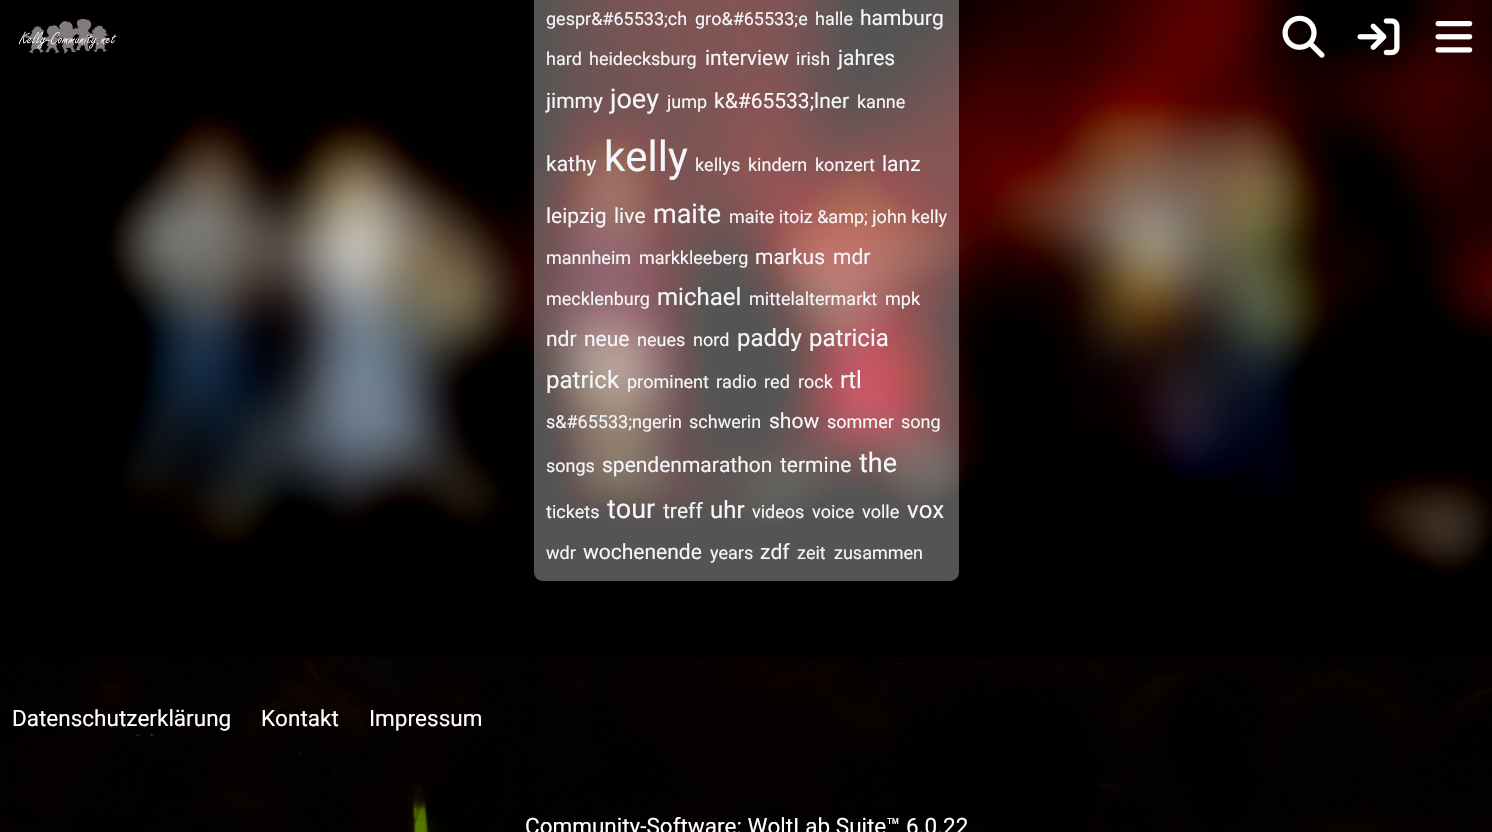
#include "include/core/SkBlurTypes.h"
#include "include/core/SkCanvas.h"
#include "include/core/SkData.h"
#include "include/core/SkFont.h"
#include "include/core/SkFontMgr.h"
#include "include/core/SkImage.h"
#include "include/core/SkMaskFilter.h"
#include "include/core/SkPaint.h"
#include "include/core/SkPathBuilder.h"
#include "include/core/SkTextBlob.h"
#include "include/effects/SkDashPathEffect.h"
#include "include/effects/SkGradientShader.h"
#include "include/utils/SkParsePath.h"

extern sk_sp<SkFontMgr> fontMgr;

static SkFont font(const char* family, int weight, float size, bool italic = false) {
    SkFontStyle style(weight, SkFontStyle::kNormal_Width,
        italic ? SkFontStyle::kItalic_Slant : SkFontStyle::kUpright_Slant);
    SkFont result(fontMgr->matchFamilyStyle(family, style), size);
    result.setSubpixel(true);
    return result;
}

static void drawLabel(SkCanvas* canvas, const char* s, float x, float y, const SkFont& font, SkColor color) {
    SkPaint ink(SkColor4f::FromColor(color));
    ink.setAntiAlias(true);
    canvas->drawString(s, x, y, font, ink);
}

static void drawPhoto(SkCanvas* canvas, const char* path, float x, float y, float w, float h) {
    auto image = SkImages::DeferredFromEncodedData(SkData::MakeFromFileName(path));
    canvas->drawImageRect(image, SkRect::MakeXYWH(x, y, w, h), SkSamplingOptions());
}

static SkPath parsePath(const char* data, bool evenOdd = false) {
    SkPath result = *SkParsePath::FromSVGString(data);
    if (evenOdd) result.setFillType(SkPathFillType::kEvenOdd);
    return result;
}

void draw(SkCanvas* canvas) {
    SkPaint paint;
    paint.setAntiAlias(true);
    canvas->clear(0xFFFFFFFF);
    drawPhoto(canvas, "assets/img1.png", 0, 648, 1492, 184);
    paint.setColor(0x33000000);
    paint.setMaskFilter(SkMaskFilter::MakeBlur(kNormal_SkBlurStyle, 9));
    canvas->drawRoundRect(SkRect::MakeXYWH(0, -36, 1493, 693), 9, 9, paint);
    paint.setMaskFilter(nullptr);
    drawPhoto(canvas, "assets/img2.png", 0, 0, 1492, 657);
    paint.setColor(0x54FFFFFF);
    canvas->drawPath(parsePath("M534-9H959V572C959 577 955 581 950 581H543C538 581 534 577 534 572Z"), paint);
    SkFont font1 = font("Roboto", 400, 18);
    drawLabel(canvas, "gespr&#65533;ch", 546, 25, font1, 0xFFF5F6F9);
    drawLabel(canvas, "gro&#65533;e", 695, 25, font1, 0xFFF5F6F9);
    drawLabel(canvas, "halle", 815, 25, font1, 0xFFF5F6F9);
    SkFont font2 = font("Roboto", 400, 21);
    drawLabel(canvas, "hamburg", 860, 25, font2, 0xFFF5F6F9);
    drawLabel(canvas, "hard", 546, 65, font1, 0xFFF5F6F9);
    drawLabel(canvas, "heidecksburg", 589, 65, font1, 0xFFF5F6F9);
    drawLabel(canvas, "interview", 705, 65, font2, 0xFFF5F6F9);
    drawLabel(canvas, "irish", 796, 65, font1, 0xFFF5F6F9);
    drawLabel(canvas, "jahres", 838, 65, font2, 0xFFF5F6F9);
    drawLabel(canvas, "jimmy", 546, 108, font2, 0xFFF5F6F9);
    SkFont font3 = font("Roboto", 400, 27);
    drawLabel(canvas, "joey", 610, 108, font3, 0xFFF5F6F9);
    drawLabel(canvas, "jump", 667, 108, font1, 0xFFF5F6F9);
    drawLabel(canvas, "k&#65533;lner", 714, 108, font2, 0xFFF5F6F9);
    drawLabel(canvas, "kanne", 857, 108, font1, 0xFFF5F6F9);
    drawLabel(canvas, "kathy", 546, 171, font2, 0xFFF5F6F9);
    SkFont font4 = font("Roboto", 400, 42);
    drawLabel(canvas, "kelly", 604, 171, font4, 0xFFF5F6F9);
    drawLabel(canvas, "kellys", 695, 171, font1, 0xFFF5F6F9);
    drawLabel(canvas, "kindern", 748, 171, font1, 0xFFF5F6F9);
    drawLabel(canvas, "konzert", 815, 171, font1, 0xFFF5F6F9);
    drawLabel(canvas, "lanz", 882, 171, font2, 0xFFF5F6F9);
    drawLabel(canvas, "leipzig", 546, 223, font2, 0xFFF5F6F9);
    drawLabel(canvas, "live", 614, 223, font2, 0xFFF5F6F9);
    drawLabel(canvas, "maite", 653, 223, font3, 0xFFF5F6F9);
    drawLabel(canvas, "maite itoiz &amp; john kelly", 729, 223, font1, 0xFFF5F6F9);
    drawLabel(canvas, "mannheim", 546, 264, font1, 0xFFF5F6F9);
    drawLabel(canvas, "markkleeberg", 639, 264, font1, 0xFFF5F6F9);
    drawLabel(canvas, "markus", 755, 264, font2, 0xFFF5F6F9);
    drawLabel(canvas, "mdr", 833, 264, font2, 0xFFF5F6F9);
    drawLabel(canvas, "mecklenburg", 546, 305, font1, 0xFFF5F6F9);
    SkFont font5 = font("Roboto", 400, 24);
    drawLabel(canvas, "michael", 657, 305, font5, 0xFFF5F6F9);
    drawLabel(canvas, "mittelaltermarkt", 749, 305, font1, 0xFFF5F6F9);
    drawLabel(canvas, "mpk", 885, 305, font1, 0xFFF5F6F9);
    drawLabel(canvas, "ndr", 546, 346, font2, 0xFFF5F6F9);
    drawLabel(canvas, "neue", 584, 346, font2, 0xFFF5F6F9);
    drawLabel(canvas, "neues", 637, 346, font1, 0xFFF5F6F9);
    drawLabel(canvas, "nord", 693, 346, font1, 0xFFF5F6F9);
    drawLabel(canvas, "paddy", 737, 346, font5, 0xFFF5F6F9);
    drawLabel(canvas, "patricia", 809, 346, font5, 0xFFF5F6F9);
    drawLabel(canvas, "patrick", 546, 388, font5, 0xFFF5F6F9);
    drawLabel(canvas, "prominent", 627, 388, font1, 0xFFF5F6F9);
    drawLabel(canvas, "radio", 716, 388, font1, 0xFFF5F6F9);
    drawLabel(canvas, "red", 764, 388, font1, 0xFFF5F6F9);
    drawLabel(canvas, "rock", 798, 388, font1, 0xFFF5F6F9);
    drawLabel(canvas, "rtl", 840, 388, font5, 0xFFF5F6F9);
    drawLabel(canvas, "s&#65533;ngerin", 546, 428, font1, 0xFFF5F6F9);
    drawLabel(canvas, "schwerin", 689, 428, font1, 0xFFF5F6F9);
    drawLabel(canvas, "show", 769, 428, font2, 0xFFF5F6F9);
    drawLabel(canvas, "sommer", 827, 428, font1, 0xFFF5F6F9);
    drawLabel(canvas, "song", 901, 428, font1, 0xFFF5F6F9);
    drawLabel(canvas, "songs", 546, 472, font1, 0xFFF5F6F9);
    drawLabel(canvas, "spendenmarathon", 602, 472, font2, 0xFFF5F6F9);
    drawLabel(canvas, "termine", 780, 472, font2, 0xFFF5F6F9);
    drawLabel(canvas, "the", 859, 472, font3, 0xFFF5F6F9);
    drawLabel(canvas, "tickets", 546, 518, font1, 0xFFF5F6F9);
    drawLabel(canvas, "tour", 607, 518, font3, 0xFFF5F6F9);
    drawLabel(canvas, "treff", 663, 518, font2, 0xFFF5F6F9);
    drawLabel(canvas, "uhr", 710, 518, font5, 0xFFF5F6F9);
    drawLabel(canvas, "videos", 752, 518, font1, 0xFFF5F6F9);
    drawLabel(canvas, "voice", 812, 518, font1, 0xFFF5F6F9);
    drawLabel(canvas, "volle", 862, 518, font1, 0xFFF5F6F9);
    drawLabel(canvas, "vox", 907, 518, font5, 0xFFF5F6F9);
    drawLabel(canvas, "wdr", 546, 559, font1, 0xFFF5F6F9);
    drawLabel(canvas, "wochenende", 583, 559, font2, 0xFFF5F6F9);
    drawLabel(canvas, "years", 710, 559, font1, 0xFFF5F6F9);
    drawLabel(canvas, "zdf", 760, 559, font2, 0xFFF5F6F9);
    drawLabel(canvas, "zeit", 797, 559, font1, 0xFFF5F6F9);
    drawLabel(canvas, "zusammen", 834, 559, font1, 0xFFF5F6F9);
    drawPhoto(canvas, "assets/img3.png", 18, 19, 99, 35);
    drawPhoto(canvas, "assets/img4.png", 1282, 15, 43, 43);
    drawPhoto(canvas, "assets/img5.png", 1357, 18, 43, 38);
    drawPhoto(canvas, "assets/img6.png", 1435, 21, 38, 32);
    SkFont font6 = font("Roboto", 400, 22.5f);
    drawLabel(canvas, "Datenschutzerklärung", 12, 726, font6, 0xFFFFFFFF);
    drawLabel(canvas, "Kontakt", 261, 726, font6, 0xFFFFFFFF);
    drawLabel(canvas, "Impressum", 369, 726, font6, 0xFFFFFFFF);
    drawLabel(canvas, "Community-Software: WoltLab Suite™ 6.0.22", 525, 834, font6, 0xFFFFFFFF);
}
